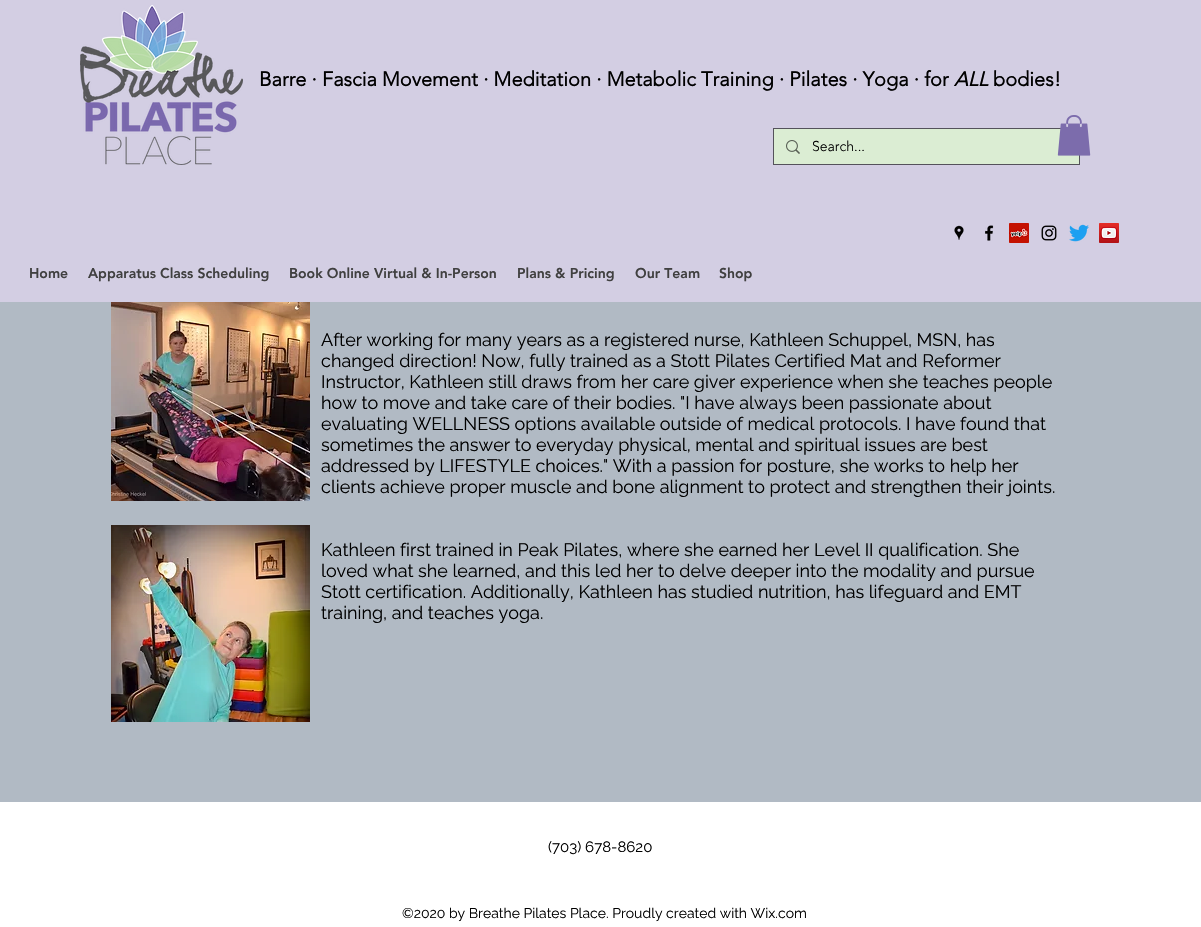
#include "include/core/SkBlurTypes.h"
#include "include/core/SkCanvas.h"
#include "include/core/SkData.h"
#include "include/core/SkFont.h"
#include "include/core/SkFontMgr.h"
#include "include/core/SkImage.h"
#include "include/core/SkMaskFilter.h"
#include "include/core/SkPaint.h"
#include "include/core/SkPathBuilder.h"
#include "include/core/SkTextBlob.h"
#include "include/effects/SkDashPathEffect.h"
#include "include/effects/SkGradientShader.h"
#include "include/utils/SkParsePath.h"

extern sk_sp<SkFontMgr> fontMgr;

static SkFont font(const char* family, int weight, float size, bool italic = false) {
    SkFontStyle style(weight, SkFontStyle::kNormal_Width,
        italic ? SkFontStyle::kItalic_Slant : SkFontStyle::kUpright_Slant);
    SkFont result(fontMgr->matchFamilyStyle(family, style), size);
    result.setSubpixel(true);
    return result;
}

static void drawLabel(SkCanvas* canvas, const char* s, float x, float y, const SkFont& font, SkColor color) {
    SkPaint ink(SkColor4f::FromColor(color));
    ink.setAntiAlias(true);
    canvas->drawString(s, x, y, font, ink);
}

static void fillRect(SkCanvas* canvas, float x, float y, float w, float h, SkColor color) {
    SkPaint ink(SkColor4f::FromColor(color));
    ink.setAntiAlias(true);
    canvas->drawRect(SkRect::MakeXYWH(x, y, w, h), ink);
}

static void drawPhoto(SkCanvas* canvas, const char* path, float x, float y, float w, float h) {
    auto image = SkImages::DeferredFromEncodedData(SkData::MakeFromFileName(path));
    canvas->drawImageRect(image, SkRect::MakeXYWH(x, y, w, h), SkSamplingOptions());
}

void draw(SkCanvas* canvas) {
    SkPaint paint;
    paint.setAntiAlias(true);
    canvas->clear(0xFFB1BAC4);
    fillRect(canvas, 0, 0, 1201, 302, 0xFFD3CEE3);
    drawPhoto(canvas, "assets/img1.png", 80, 5, 163, 160);
    SkFont font1 = font("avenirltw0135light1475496", 700, 20);
    drawLabel(canvas, "Barre · Fascia Movement · Meditation · Metabolic Training · Pilates · Yoga · for", 259, 86, font1, 0xFF000000);
    SkFont font2 = font("avenirltw0135light1475496", 700, 20, true);
    drawLabel(canvas, "ALL", 954, 86, font2, 0xFF000000);
    drawLabel(canvas, "bodies!", 993, 86, font1, 0xFF000000);
    paint.setStroke(true);
    paint.setStrokeWidth(1);
    paint.setColor(0xFF54525B);
    canvas->drawRect(SkRect::MakeXYWH(773.5f, 128.5f, 306, 36), paint);
    fillRect(canvas, 774, 129, 305, 35, 0xFFDBEDD3);
    drawPhoto(canvas, "assets/img2.png", 786, 140, 14, 14);
    SkFont font3 = font("avenirltw0135light1475496", 300, 14);
    drawLabel(canvas, "Search...", 812, 151, font3, 0xFF000000);
    drawPhoto(canvas, "assets/img3.png", 1057, 115, 34, 41);
    drawPhoto(canvas, "assets/img4.png", 954, 225, 10, 15);
    drawPhoto(canvas, "assets/img5.png", 985, 225, 9, 16);
    drawPhoto(canvas, "assets/img6.png", 1009, 223, 20, 20);
    drawPhoto(canvas, "assets/img7.png", 1041, 225, 16, 16);
    drawPhoto(canvas, "assets/img8.png", 1069, 224, 20, 18);
    drawPhoto(canvas, "assets/img9.png", 1099, 223, 20, 20);
    SkFont font4 = font("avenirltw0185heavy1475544", 900, 14);
    drawLabel(canvas, "Home", 29, 278, font4, 0xFF404040);
    drawLabel(canvas, "Apparatus Class Scheduling", 88, 278, font4, 0xFF404040);
    drawLabel(canvas, "Book Online Virtual & In-Person", 289, 278, font4, 0xFF404040);
    drawLabel(canvas, "Plans & Pricing", 517, 278, font4, 0xFF404040);
    drawLabel(canvas, "Our Team", 635, 278, font4, 0xFF404040);
    drawLabel(canvas, "Shop", 719, 278, font4, 0xFF404040);
    drawPhoto(canvas, "assets/img10.png", 111, 302, 199, 199);
    SkFont font5 = font("Raleway", 400, 18);
    drawLabel(canvas, "After working for many years as a registered nurse, Kathleen Schuppel, MSN, has", 321, 346, font5, 0xFF000000);
    drawLabel(canvas, "changed direction! Now, fully trained as a Stott Pilates Certified Mat and Reformer", 321, 367, font5, 0xFF000000);
    drawLabel(canvas, "Instructor, Kathleen still draws from her care giver experience when she teaches people", 321, 388, font5, 0xFF000000);
    drawLabel(canvas, "how to move and take care of their bodies. \"I have always been passionate about", 321, 409, font5, 0xFF000000);
    drawLabel(canvas, "evaluating WELLNESS options available outside of medical protocols. I have found that", 321, 430, font5, 0xFF000000);
    drawLabel(canvas, "sometimes the answer to everyday physical, mental and spiritual issues are best", 321, 451, font5, 0xFF000000);
    drawLabel(canvas, "addressed by LIFESTYLE choices.\" With a passion for posture, she works to help her", 321, 472, font5, 0xFF000000);
    drawLabel(canvas, "clients achieve proper muscle and bone alignment to protect and strengthen their joints.", 321, 493, font5, 0xFF000000);
    drawLabel(canvas, "Kathleen first trained in Peak Pilates, where she earned her Level II qualification. She", 321, 556, font5, 0xFF000000);
    drawLabel(canvas, "loved what she learned, and this led her to delve deeper into the modality and pursue", 321, 577, font5, 0xFF000000);
    drawLabel(canvas, "Stott certification. Additionally, Kathleen has studied nutrition, has lifeguard and EMT", 321, 598, font5, 0xFF000000);
    drawLabel(canvas, "training, and teaches yoga.", 321, 619, font5, 0xFF000000);
    drawPhoto(canvas, "assets/img11.png", 111, 525, 199, 197);
    fillRect(canvas, 0, 802, 1201, 125, 0xFFFFFFFF);
    SkFont font6 = font("Raleway", 400, 15);
    drawLabel(canvas, "(703) 678-8620", 548, 852, font6, 0xFF000000);
    SkFont font7 = font("Raleway", 400, 14);
    drawLabel(canvas, "©2020 by Breathe Pilates Place. Proudly created with Wix.com", 402, 918, font7, 0xFF000000);
}
